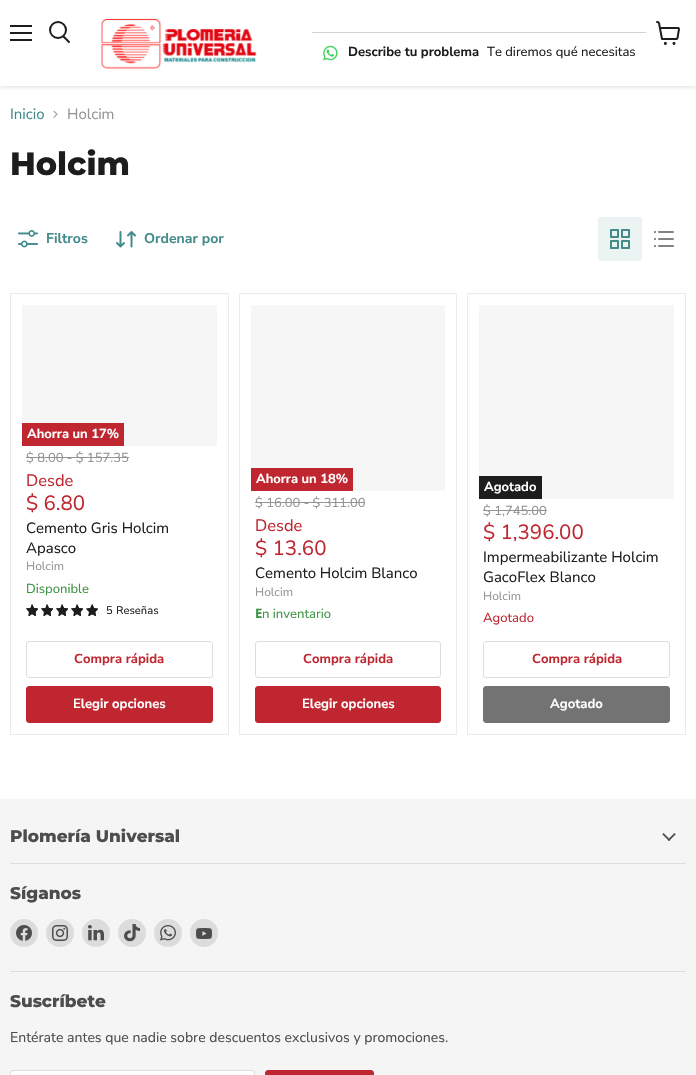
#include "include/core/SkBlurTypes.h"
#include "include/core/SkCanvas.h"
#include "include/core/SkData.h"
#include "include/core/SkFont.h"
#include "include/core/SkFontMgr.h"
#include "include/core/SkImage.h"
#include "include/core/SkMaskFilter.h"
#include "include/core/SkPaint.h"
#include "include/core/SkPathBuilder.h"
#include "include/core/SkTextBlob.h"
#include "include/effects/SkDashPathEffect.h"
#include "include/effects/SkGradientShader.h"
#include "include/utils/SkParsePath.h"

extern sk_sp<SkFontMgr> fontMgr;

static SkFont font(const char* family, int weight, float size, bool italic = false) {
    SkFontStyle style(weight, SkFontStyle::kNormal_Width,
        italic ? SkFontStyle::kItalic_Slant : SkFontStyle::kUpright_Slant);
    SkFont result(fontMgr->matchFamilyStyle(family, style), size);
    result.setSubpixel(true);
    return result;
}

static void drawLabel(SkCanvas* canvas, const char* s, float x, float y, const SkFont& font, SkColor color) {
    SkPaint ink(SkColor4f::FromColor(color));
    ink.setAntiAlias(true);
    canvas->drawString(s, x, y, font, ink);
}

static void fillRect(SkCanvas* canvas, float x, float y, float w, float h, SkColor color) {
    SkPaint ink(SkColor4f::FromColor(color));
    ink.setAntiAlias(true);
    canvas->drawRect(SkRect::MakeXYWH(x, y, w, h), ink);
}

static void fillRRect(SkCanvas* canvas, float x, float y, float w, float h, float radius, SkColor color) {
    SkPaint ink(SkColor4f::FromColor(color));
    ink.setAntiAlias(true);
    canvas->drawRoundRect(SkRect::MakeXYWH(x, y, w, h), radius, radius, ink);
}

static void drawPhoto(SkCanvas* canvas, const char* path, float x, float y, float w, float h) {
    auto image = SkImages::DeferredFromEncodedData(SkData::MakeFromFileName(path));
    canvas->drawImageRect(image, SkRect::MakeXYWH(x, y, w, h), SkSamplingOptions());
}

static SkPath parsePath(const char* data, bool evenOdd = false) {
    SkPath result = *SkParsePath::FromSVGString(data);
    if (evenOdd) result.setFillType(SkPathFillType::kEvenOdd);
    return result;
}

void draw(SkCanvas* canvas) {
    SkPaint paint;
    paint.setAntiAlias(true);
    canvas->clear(0xFFFFFFFF);
    canvas->save();
    canvas->clipRect(SkRect::MakeXYWH(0, 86, 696, 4));
    paint.setColor(0x40808080);
    paint.setMaskFilter(SkMaskFilter::MakeBlur(kNormal_SkBlurStyle, 2));
    canvas->drawRect(SkRect::MakeXYWH(0, 1, 696, 86), paint);
    paint.setMaskFilter(nullptr);
    canvas->restore();
    fillRect(canvas, 10, 25, 22, 2, 0xFF1D1D1D);
    fillRect(canvas, 10, 32, 22, 2, 0xFF1D1D1D);
    fillRect(canvas, 10, 39, 22, 2, 0xFF1D1D1D);
    paint.setStroke(true);
    paint.setStrokeWidth(2);
    paint.setStrokeCap(SkPaint::kRound_Cap);
    paint.setColor(0xFF1D1D1D);
    canvas->drawPath(parsePath("M69 42L63.5 36.5"), paint);
    paint.setStrokeCap(SkPaint::kButt_Cap);
    canvas->drawCircle(58, 30, 8, paint);
    drawPhoto(canvas, "assets/img1.png", 656, 21, 24, 24);
    drawPhoto(canvas, "assets/img2.png", 101, 18, 156, 51);
    fillRect(canvas, 312, 32, 334, 1, 0xFFD2D2D2);
    drawPhoto(canvas, "assets/img3.png", 323, 45, 15, 16);
    SkFont font1 = font("Nunito Sans", 700, 13.1f);
    drawLabel(canvas, "Describe tu problema", 348, 56, font1, 0xFF1D1D1D);
    SkFont font2 = font("Nunito Sans", 400, 13.1f);
    drawLabel(canvas, "Te diremos qué necesitas", 487, 56, font2, 0xFF1D1D1D);
    SkFont font3 = font("Nunito Sans", 400, 15);
    drawLabel(canvas, "Inicio", 10, 119, font3, 0xFF438B8A);
    drawPhoto(canvas, "assets/img4.png", 53, 110, 5, 8);
    drawLabel(canvas, "Holcim", 67, 119, font3, 0xFF949494);
    SkFont font4 = font("Montserrat", 800, 32);
    drawLabel(canvas, "Holcim", 10, 175, font4, 0xFF1D1D1D);
    drawPhoto(canvas, "assets/img5.png", 18, 230, 20, 18);
    SkFont font5 = font("Nunito Sans", 700, 14.05f);
    drawLabel(canvas, "Filtros", 46, 243, font5, 0xFF438B8A);
    drawPhoto(canvas, "assets/img6.png", 116, 231, 20, 17);
    drawLabel(canvas, "Ordenar por", 144, 243, font5, 0xFF438B8A);
    fillRRect(canvas, 598, 217, 44, 44, 3, 0xFFECF3F3);
    drawPhoto(canvas, "assets/img7.png", 610, 229, 20, 20);
    drawPhoto(canvas, "assets/img8.png", 654, 231, 20, 16);
    paint.setStrokeWidth(1);
    paint.setColor(0xFFEBEBEB);
    canvas->drawRect(SkRect::MakeXYWH(10.5f, 293.5f, 218, 441), paint);
    fillRect(canvas, 22, 305, 195, 141, 0xFFF6F6F6);
    fillRect(canvas, 22, 423, 102, 23, 0xFFBF262F);
    SkFont font6 = font("Nunito Sans", 700, 13);
    drawLabel(canvas, "Ahorra un 17%", 27, 438, font6, 0xFFFFFFFF);
    SkFont font7 = font("Nunito Sans", 400, 13);
    drawLabel(canvas, "$ 8.00 - $ 157.35", 26, 462, font7, 0xFF949494);
    fillRect(canvas, 26, 457, 103, 1, 0xFF949494);
    SkFont font8 = font("Nunito Sans", 400, 16.5f);
    drawLabel(canvas, "Desde", 26, 486, font8, 0xFFBF262F);
    SkFont font9 = font("Nunito Sans", 400, 20.5f);
    drawLabel(canvas, "$ 6.80", 26, 510, font9, 0xFFBF262F);
    drawLabel(canvas, "Cemento Gris Holcim", 26, 533, font3, 0xFF1D1D1D);
    drawLabel(canvas, "Apasco", 26, 553, font3, 0xFF1D1D1D);
    SkFont font10 = font("Nunito Sans", 400, 12);
    drawLabel(canvas, "Holcim", 26, 570, font10, 0xFF949494);
    drawLabel(canvas, "Disponible", 26, 593, font2, 0xFF3C9342);
    canvas->save();
    canvas->clipRect(SkRect::MakeXYWH(26, 604, 12, 12));
    paint.setStroke(false);
    paint.setColor(0xFF1D1D1D);
    canvas->drawPath(parsePath("M32 604L30.5 608L26 608.5L29 612L28.5 616.5L32 614L36 616.5L35.5 612L38.5 608.5L34 608Z"), paint);
    canvas->restore();
    canvas->save();
    canvas->clipRect(SkRect::MakeXYWH(26, 604, 12, 12));
    canvas->clipPath(parsePath("M32 604L34 608L38.5 608.5L35.5 612L36 616.5L32 614L28.5 616.5L29 612L26 608.5L30.5 608Z"), true);
    paint.setStroke(true);
    paint.setStrokeWidth(1.8f);
    paint.setStrokeCap(SkPaint::kRound_Cap);
    paint.setStrokeJoin(SkPaint::kRound_Join);
    canvas->drawPath(parsePath("M32 604L34 608L38.5 608.5L35.5 612L36 616.5L32 614L28.5 616.5L29 612L26 608.5L30.5 608Z"), paint);
    canvas->restore();
    canvas->save();
    canvas->clipRect(SkRect::MakeXYWH(41, 604, 12, 12));
    paint.setStroke(false);
    canvas->drawPath(parsePath("M47 604L45.5 608L41 608.5L44 612L43.5 616.5L47 614L51 616.5L50.5 612L53.5 608.5L49 608Z"), paint);
    canvas->restore();
    canvas->save();
    canvas->clipRect(SkRect::MakeXYWH(41, 604, 12, 12));
    canvas->clipPath(parsePath("M47 604L49 608L53.5 608.5L50.5 612L51 616.5L47 614L43.5 616.5L44 612L41 608.5L45.5 608Z"), true);
    paint.setStroke(true);
    canvas->drawPath(parsePath("M47 604L49 608L53.5 608.5L50.5 612L51 616.5L47 614L43.5 616.5L44 612L41 608.5L45.5 608Z"), paint);
    canvas->restore();
    canvas->save();
    canvas->clipRect(SkRect::MakeXYWH(56, 604, 12, 12));
    paint.setStroke(false);
    canvas->drawPath(parsePath("M62 604L60.5 608L56 608.5L59 612L58.5 616.5L62 614L66 616.5L65.5 612L68.5 608.5L64 608Z"), paint);
    canvas->restore();
    canvas->save();
    canvas->clipRect(SkRect::MakeXYWH(56, 604, 12, 12));
    canvas->clipPath(parsePath("M62 604L64 608L68.5 608.5L65.5 612L66 616.5L62 614L58.5 616.5L59 612L56 608.5L60.5 608Z"), true);
    paint.setStroke(true);
    canvas->drawPath(parsePath("M62 604L64 608L68.5 608.5L65.5 612L66 616.5L62 614L58.5 616.5L59 612L56 608.5L60.5 608Z"), paint);
    canvas->restore();
    canvas->save();
    canvas->clipRect(SkRect::MakeXYWH(71, 604, 12, 12));
    paint.setStroke(false);
    canvas->drawPath(parsePath("M77 604L75.5 608L71 608.5L74 612L73.5 616.5L77 614L81 616.5L80.5 612L83.5 608.5L79 608Z"), paint);
    canvas->restore();
    canvas->save();
    canvas->clipRect(SkRect::MakeXYWH(71, 604, 12, 12));
    canvas->clipPath(parsePath("M77 604L79 608L83.5 608.5L80.5 612L81 616.5L77 614L73.5 616.5L74 612L71 608.5L75.5 608Z"), true);
    paint.setStroke(true);
    canvas->drawPath(parsePath("M77 604L79 608L83.5 608.5L80.5 612L81 616.5L77 614L73.5 616.5L74 612L71 608.5L75.5 608Z"), paint);
    canvas->restore();
    drawPhoto(canvas, "assets/img9.png", 86, 604, 12, 12);
    SkFont font11 = font("Nunito Sans", 400, 11);
    drawLabel(canvas, "5", 106, 614, font11, 0xFF1D1D1D);
    SkFont font12 = font("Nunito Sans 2", 400, 11);
    drawLabel(canvas, "Reseñas", 116, 614, font12, 0xFF1D1D1D);
    paint.setStrokeWidth(1);
    paint.setStrokeCap(SkPaint::kButt_Cap);
    paint.setStrokeJoin(SkPaint::kMiter_Join);
    paint.setColor(0xFFDDDDDD);
    canvas->drawRoundRect(SkRect::MakeXYWH(26.5f, 641.5f, 186, 36), 2.5f, 2.5f, paint);
    drawLabel(canvas, "Compra rápida", 74, 663, font1, 0xFFBF262F);
    paint.setStroke(false);
    paint.setColor(0xFFBF262F);
    canvas->drawRoundRect(SkRect::MakeXYWH(26.5f, 686.5f, 186, 36), 2.5f, 2.5f, paint);
    paint.setStroke(true);
    canvas->drawRoundRect(SkRect::MakeXYWH(26.5f, 686.5f, 186, 36), 2.5f, 2.5f, paint);
    drawLabel(canvas, "Elegir opciones", 73, 708, font1, 0xFFFFFFFF);
    paint.setColor(0xFFEBEBEB);
    canvas->drawRect(SkRect::MakeXYWH(239.5f, 293.5f, 217, 441), paint);
    fillRect(canvas, 251, 305, 194, 186, 0xFFF6F6F6);
    fillRect(canvas, 251, 468, 102, 23, 0xFFBF262F);
    drawLabel(canvas, "Ahorra un 18%", 256, 483, font6, 0xFFFFFFFF);
    drawLabel(canvas, "$ 16.00 - $ 311.00", 255, 507, font7, 0xFF949494);
    fillRect(canvas, 255, 502, 110, 1, 0xFF949494);
    drawLabel(canvas, "Desde", 255, 531, font8, 0xFFBF262F);
    drawLabel(canvas, "$ 13.60", 255, 555, font9, 0xFFBF262F);
    drawLabel(canvas, "Cemento Holcim Blanco", 255, 578, font3, 0xFF1D1D1D);
    drawLabel(canvas, "Holcim", 255, 596, font10, 0xFF949494);
    SkFont font13 = font("Noto Sans", 700, 13.1f);
    drawLabel(canvas, "E", 255, 618, font13, 0xFF3C9342);
    drawLabel(canvas, "n inventario", 262, 618, font2, 0xFF3C9342);
    paint.setColor(0xFFDDDDDD);
    canvas->drawRoundRect(SkRect::MakeXYWH(255.5f, 641.5f, 185, 36), 2.5f, 2.5f, paint);
    drawLabel(canvas, "Compra rápida", 303, 663, font1, 0xFFBF262F);
    paint.setStroke(false);
    paint.setColor(0xFFBF262F);
    canvas->drawRoundRect(SkRect::MakeXYWH(255.5f, 686.5f, 185, 36), 2.5f, 2.5f, paint);
    paint.setStroke(true);
    canvas->drawRoundRect(SkRect::MakeXYWH(255.5f, 686.5f, 185, 36), 2.5f, 2.5f, paint);
    drawLabel(canvas, "Elegir opciones", 302, 708, font1, 0xFFFFFFFF);
    paint.setColor(0xFFEBEBEB);
    canvas->drawRect(SkRect::MakeXYWH(467.5f, 293.5f, 218, 441), paint);
    fillRect(canvas, 479, 305, 195, 194, 0xFFF6F6F6);
    fillRect(canvas, 479, 476, 63, 23, 0xFF1D1D1D);
    drawLabel(canvas, "Agotado", 484, 491, font6, 0xFFFFFFFF);
    drawLabel(canvas, "$ 1,745.00", 483, 515, font7, 0xFF949494);
    fillRect(canvas, 483, 510, 64, 1, 0xFF949494);
    drawLabel(canvas, "$ 1,396.00", 483, 539, font9, 0xFFBF262F);
    drawLabel(canvas, "Impermeabilizante Holcim", 483, 562, font3, 0xFF1D1D1D);
    drawLabel(canvas, "GacoFlex Blanco", 483, 582, font3, 0xFF1D1D1D);
    drawLabel(canvas, "Holcim", 483, 600, font10, 0xFF949494);
    drawLabel(canvas, "Agotado", 483, 622, font2, 0xFFBF262F);
    paint.setColor(0xFFDDDDDD);
    canvas->drawRoundRect(SkRect::MakeXYWH(483.5f, 641.5f, 186, 36), 2.5f, 2.5f, paint);
    drawLabel(canvas, "Compra rápida", 532, 663, font1, 0xFFBF262F);
    paint.setStroke(false);
    paint.setColor(0xFF737373);
    canvas->drawRoundRect(SkRect::MakeXYWH(483.5f, 686.5f, 186, 36), 2.5f, 2.5f, paint);
    paint.setStroke(true);
    canvas->drawRoundRect(SkRect::MakeXYWH(483.5f, 686.5f, 186, 36), 2.5f, 2.5f, paint);
    drawLabel(canvas, "Agotado", 550, 708, font1, 0xFFFFFFFF);
    fillRect(canvas, 0, 799, 696, 276, 0xFFF5F5F5);
    fillRect(canvas, 10, 863, 676, 1, 0xFFDCDCDC);
    SkFont font14 = font("Montserrat", 800, 16.9f);
    drawLabel(canvas, "Plomería Universal", 10, 842, font14, 0xFF4D4D4D);
    drawPhoto(canvas, "assets/img10.png", 662, 833, 14, 8);
    fillRect(canvas, 10, 971, 676, 1, 0xFFDCDCDC);
    drawLabel(canvas, "Síganos", 10, 899, font14, 0xFF4D4D4D);
    paint.setStroke(false);
    paint.setColor(0xFFDCDCDC);
    canvas->drawCircle(24, 933, 14, paint);
    drawPhoto(canvas, "assets/img11.png", 16, 925, 16, 16);
    canvas->drawCircle(60, 933, 14, paint);
    drawPhoto(canvas, "assets/img12.png", 52, 925, 16, 16);
    canvas->drawCircle(96, 933, 14, paint);
    drawPhoto(canvas, "assets/img13.png", 88, 925, 16, 16);
    canvas->drawCircle(132, 933, 14, paint);
    drawPhoto(canvas, "assets/img14.png", 124, 924, 16, 18);
    canvas->drawCircle(168, 933, 14, paint);
    drawPhoto(canvas, "assets/img15.png", 160, 925, 16, 16);
    canvas->drawCircle(204, 933, 14, paint);
    drawPhoto(canvas, "assets/img16.png", 196, 928, 16, 11);
    drawLabel(canvas, "Suscríbete", 10, 1007, font14, 0xFF4D4D4D);
    SkFont font15 = font("Nunito Sans", 400, 14.05f);
    drawLabel(canvas, "Entérate antes que nadie sobre descuentos exclusivos y promociones.", 10, 1042, font15, 0xFF4D4D4D);
    paint.setColor(0xFFFFFFFF);
    canvas->drawRoundRect(SkRect::MakeXYWH(10.5f, 1070.5f, 244, 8), 2.5f, 2.5f, paint);
    paint.setStroke(true);
    paint.setColor(0xFFDDDDDD);
    canvas->drawRoundRect(SkRect::MakeXYWH(10.5f, 1070.5f, 244, 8), 2.5f, 2.5f, paint);
    paint.setStroke(false);
    paint.setColor(0xFFBF262F);
    canvas->drawRoundRect(SkRect::MakeXYWH(265.5f, 1070.5f, 108, 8), 2.5f, 2.5f, paint);
    paint.setStroke(true);
    canvas->drawRoundRect(SkRect::MakeXYWH(265.5f, 1070.5f, 108, 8), 2.5f, 2.5f, paint);
}
